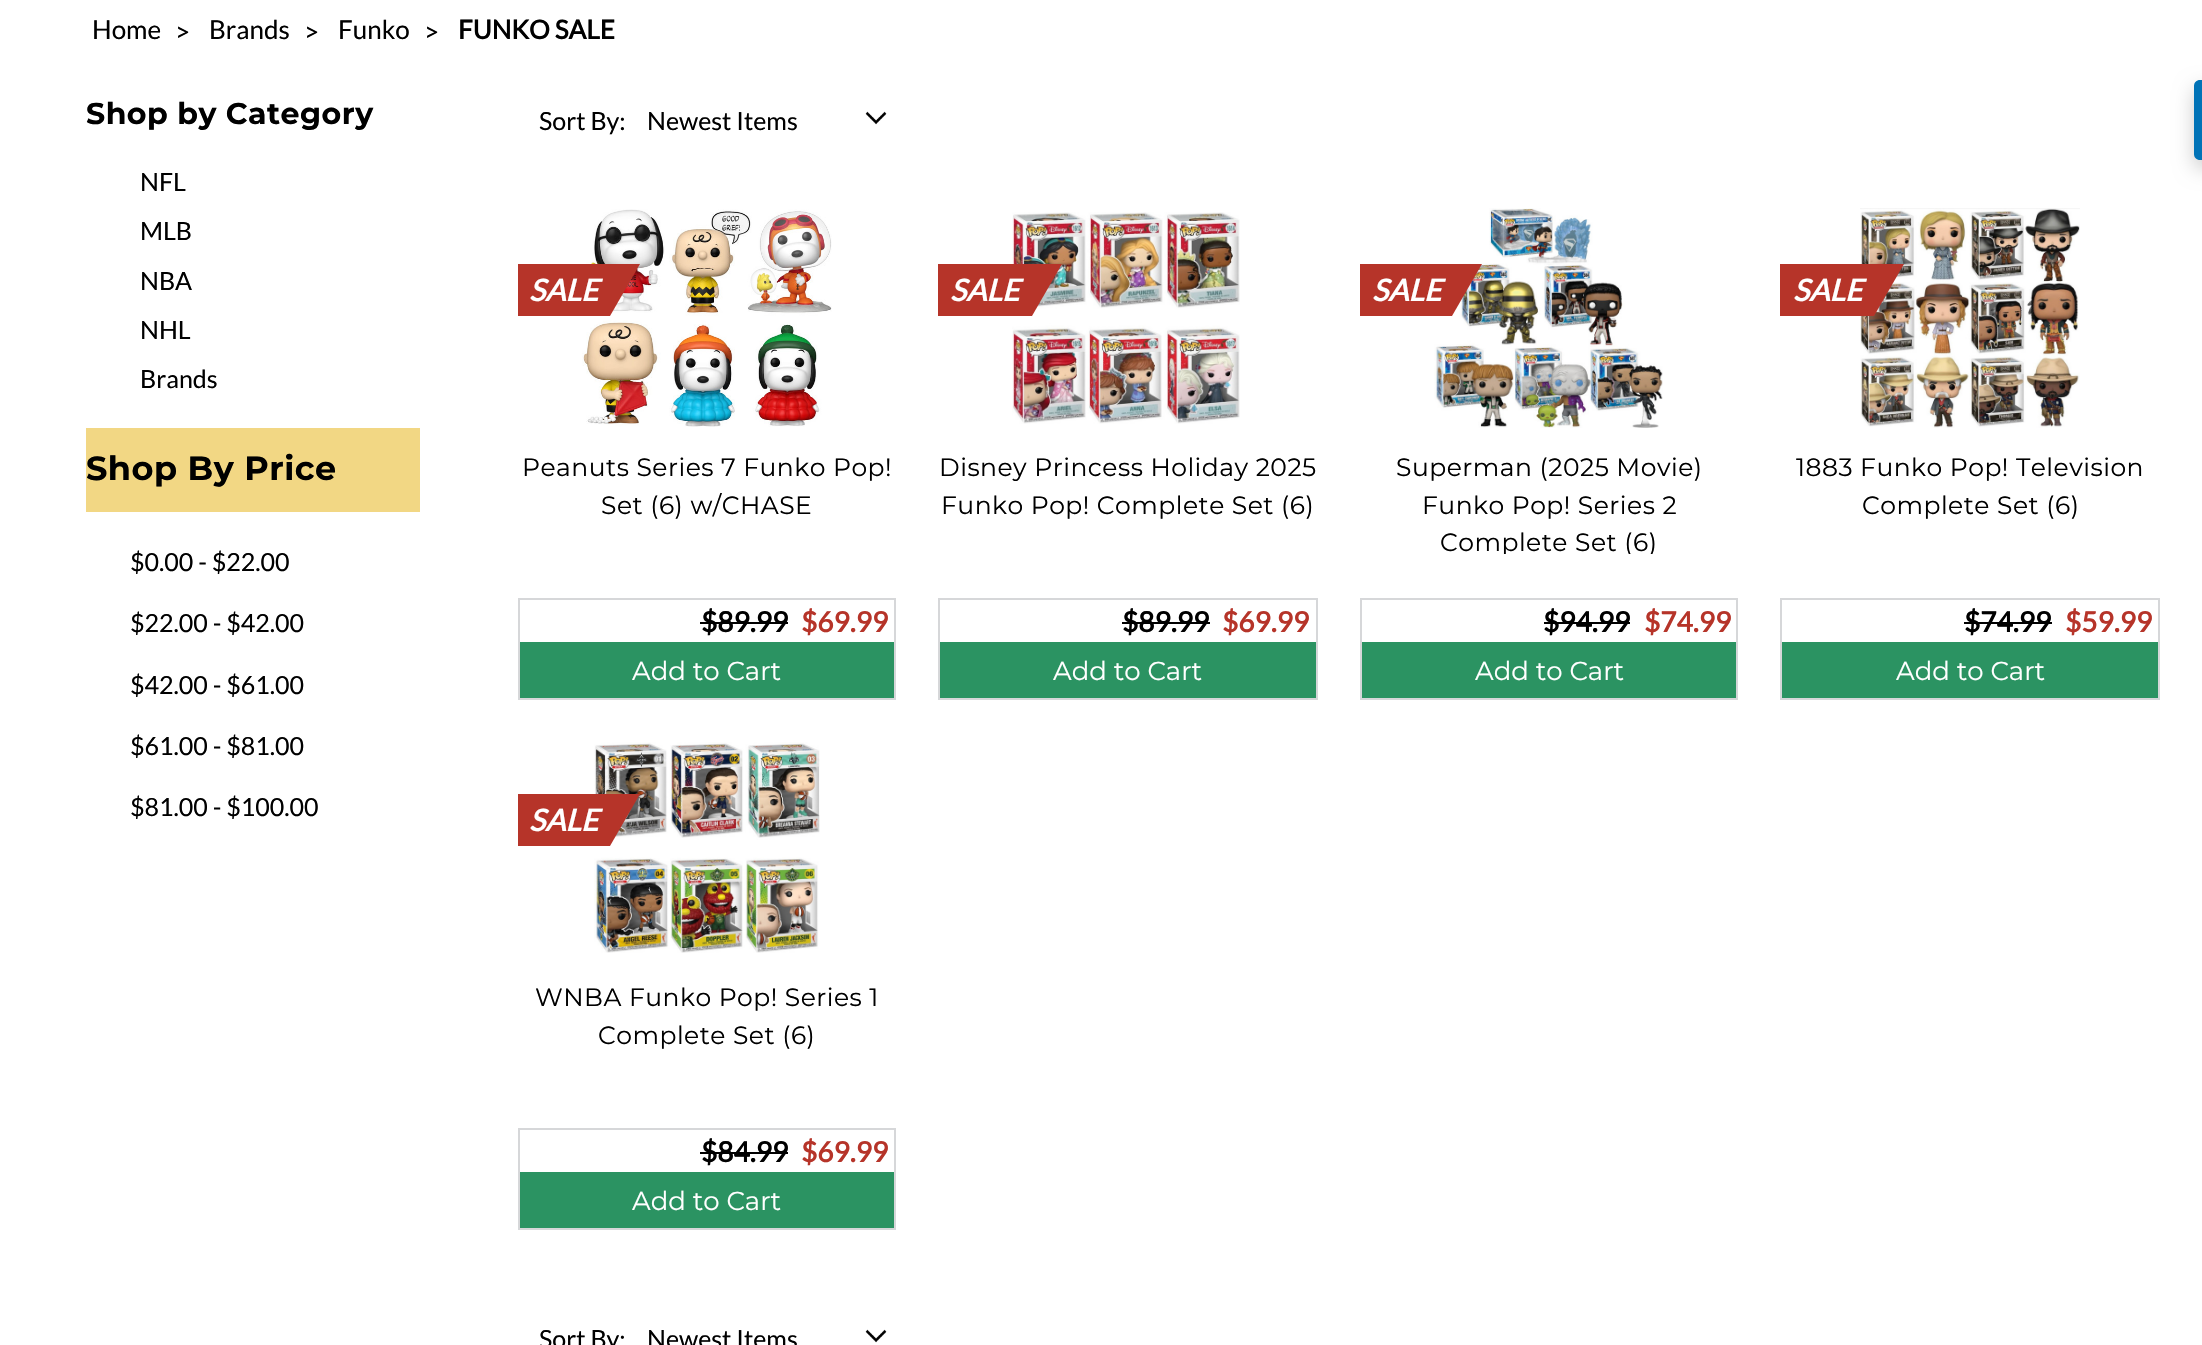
#include "include/core/SkBlurTypes.h"
#include "include/core/SkCanvas.h"
#include "include/core/SkData.h"
#include "include/core/SkFont.h"
#include "include/core/SkFontMgr.h"
#include "include/core/SkImage.h"
#include "include/core/SkMaskFilter.h"
#include "include/core/SkPaint.h"
#include "include/core/SkPathBuilder.h"
#include "include/core/SkTextBlob.h"
#include "include/effects/SkDashPathEffect.h"
#include "include/effects/SkGradientShader.h"
#include "include/utils/SkParsePath.h"

extern sk_sp<SkFontMgr> fontMgr;

static SkFont font(const char* family, int weight, float size, bool italic = false) {
    SkFontStyle style(weight, SkFontStyle::kNormal_Width,
        italic ? SkFontStyle::kItalic_Slant : SkFontStyle::kUpright_Slant);
    SkFont result(fontMgr->matchFamilyStyle(family, style), size);
    result.setSubpixel(true);
    return result;
}

static void drawLabel(SkCanvas* canvas, const char* s, float x, float y, const SkFont& font, SkColor color) {
    SkPaint ink(SkColor4f::FromColor(color));
    ink.setAntiAlias(true);
    canvas->drawString(s, x, y, font, ink);
}

static void drawTracked(SkCanvas* canvas, const char* s, float x, float y, const SkFont& font, const SkPaint& ink, float letter, float word) {
    std::vector<SkGlyphID> glyphs(font.countText(s, strlen(s), SkTextEncoding::kUTF8));
    std::vector<float> xs(glyphs.size());
    font.textToGlyphs(s, strlen(s), SkTextEncoding::kUTF8, glyphs);
    font.getXPos(glyphs, xs, x);
    float extra = 0;
    for (size_t i = 0; i < glyphs.size(); i++) {
        xs[i] += extra;
        extra += letter + word * (glyphs[i] == font.unicharToGlyph(' '));
    }
    canvas->drawTextBlob(SkTextBlob::MakeFromPosHGlyphs(glyphs, xs, y, font), 0, 0, ink);
}

static void fillRect(SkCanvas* canvas, float x, float y, float w, float h, SkColor color) {
    SkPaint ink(SkColor4f::FromColor(color));
    ink.setAntiAlias(true);
    canvas->drawRect(SkRect::MakeXYWH(x, y, w, h), ink);
}

static void drawPhoto(SkCanvas* canvas, const char* path, float x, float y, float w, float h) {
    auto image = SkImages::DeferredFromEncodedData(SkData::MakeFromFileName(path));
    canvas->drawImageRect(image, SkRect::MakeXYWH(x, y, w, h), SkSamplingOptions());
}

static SkPath parsePath(const char* data, bool evenOdd = false) {
    SkPath result = *SkParsePath::FromSVGString(data);
    if (evenOdd) result.setFillType(SkPathFillType::kEvenOdd);
    return result;
}

void draw(SkCanvas* canvas) {
    SkPaint paint;
    paint.setAntiAlias(true);
    canvas->clear(0xFFFFFFFF);
    SkFont font1 = font("Lato", 400, 26);
    drawLabel(canvas, "Home", 92, 39, font1, 0xFF000000);
    drawLabel(canvas, ">", 175, 41, font1, 0xFF000000);
    drawLabel(canvas, "Brands", 209, 39, font1, 0xFF000000);
    drawLabel(canvas, ">", 304, 41, font1, 0xFF000000);
    drawLabel(canvas, "Funko", 338, 39, font1, 0xFF000000);
    drawLabel(canvas, ">", 424, 41, font1, 0xFF000000);
    SkFont font2 = font("Lato", 700, 26);
    drawLabel(canvas, "FUNKO SALE", 458, 39, font2, 0xFF000000);
    SkFont font3 = font("Montserrat", 700, 30);
    paint.setColor(0xFF000000);
    drawTracked(canvas, "Shop by Category", 86, 124, font3, paint, 0.5f, 0);
    SkFont font4 = font("Lato", 400, 25);
    drawLabel(canvas, "NFL", 140, 191, font4, 0xFF000000);
    drawLabel(canvas, "MLB", 140, 240, font4, 0xFF000000);
    drawLabel(canvas, "NBA", 140, 290, font4, 0xFF000000);
    drawLabel(canvas, "NHL", 140, 339, font4, 0xFF000000);
    drawLabel(canvas, "Brands", 140, 388, font4, 0xFF000000);
    fillRect(canvas, 86, 428, 334, 84, 0xFFF2D784);
    SkFont font5 = font("Montserrat", 700, 33.5f);
    drawTracked(canvas, "Shop By Price", 86, 480, font5, paint, 0.5f, 0);
    drawLabel(canvas, "$0.00 - $22.00", 130, 571, font4, 0xFF000000);
    drawLabel(canvas, "$22.00 - $42.00", 130, 632, font4, 0xFF000000);
    drawLabel(canvas, "$42.00 - $61.00", 130, 694, font4, 0xFF000000);
    drawLabel(canvas, "$61.00 - $81.00", 130, 755, font4, 0xFF000000);
    drawLabel(canvas, "$81.00 - $100.00", 130, 816, font4, 0xFF000000);
    drawLabel(canvas, "Sort By:", 539, 130, font4, 0xFF000000);
    drawPhoto(canvas, "assets/img1.png", 865, 111, 22, 14);
    drawLabel(canvas, "Newest Items", 647, 130, font4, 0xFF000000);
    drawPhoto(canvas, "assets/img2.png", 578, 209, 254, 218);
    fillRect(canvas, 518, 264, 92, 52, 0xFFB63429);
    SkFont font6 = font("Lato", 700, 30, true);
    drawLabel(canvas, "SALE", 529, 301, font6, 0xFFFFFFFF);
    paint.setColor(0xFFB63429);
    canvas->drawPath(parsePath("M610 316V264H640Z"), paint);
    SkFont font7 = font("Montserrat", 100, 25);
    paint.setColor(0xFF000000);
    drawTracked(canvas, "Peanuts Series 7 Funko Pop!", 522, 476, font7, paint, 0.5f, 0);
    drawTracked(canvas, "Set (6) w/CHASE", 601, 514, font7, paint, 0.5f, 0);
    paint.setStroke(true);
    paint.setStrokeWidth(2);
    paint.setColor(0xFFD6D7D9);
    canvas->drawRect(SkRect::MakeXYWH(519, 599, 376, 100), paint);
    SkFont font8 = font("Lato", 700, 28);
    drawLabel(canvas, "$89.99", 701, 632, font8, 0xFF000000);
    fillRect(canvas, 700, 622, 88, 2, 0xFF000000);
    drawLabel(canvas, "$69.99", 801, 632, font8, 0xFFB63429);
    fillRect(canvas, 520, 642, 374, 56, 0xFF2B9362);
    SkFont font9 = font("Montserrat", 100, 26);
    drawLabel(canvas, "Add to Cart", 632, 680, font9, 0xFFFFFFFF);
    drawPhoto(canvas, "assets/img3.png", 1012, 212, 228, 212);
    fillRect(canvas, 938, 264, 94, 52, 0xFFB63429);
    drawLabel(canvas, "SALE", 950, 301, font6, 0xFFFFFFFF);
    paint.setStroke(false);
    paint.setColor(0xFFB63429);
    canvas->drawPath(parsePath("M1032 316V264H1062Z"), paint);
    paint.setColor(0xFF000000);
    drawTracked(canvas, "Disney Princess Holiday 2025", 939, 476, font7, paint, 0.5f, 0);
    drawTracked(canvas, "Funko Pop! Complete Set (6)", 941, 514, font7, paint, 0.5f, 0);
    paint.setStroke(true);
    paint.setColor(0xFFD6D7D9);
    canvas->drawRect(SkRect::MakeXYWH(939, 599, 378, 100), paint);
    drawLabel(canvas, "$89.99", 1122, 632, font8, 0xFF000000);
    fillRect(canvas, 1122, 622, 88, 2, 0xFF000000);
    drawLabel(canvas, "$69.99", 1222, 632, font8, 0xFFB63429);
    fillRect(canvas, 940, 642, 376, 56, 0xFF2B9362);
    drawLabel(canvas, "Add to Cart", 1053, 680, font9, 0xFFFFFFFF);
    drawPhoto(canvas, "assets/img4.png", 1434, 208, 229, 220);
    fillRect(canvas, 1360, 264, 92, 52, 0xFFB63429);
    drawLabel(canvas, "SALE", 1372, 301, font6, 0xFFFFFFFF);
    paint.setStroke(false);
    paint.setColor(0xFFB63429);
    canvas->drawPath(parsePath("M1452 316V264H1482Z"), paint);
    paint.setColor(0xFF000000);
    drawTracked(canvas, "Superman (2025 Movie)", 1396, 476, font7, paint, 0.5f, 0);
    drawTracked(canvas, "Funko Pop! Series 2", 1422, 514, font7, paint, 0.5f, 0);
    canvas->save();
    canvas->clipRect(SkRect::MakeXYWH(1360, 450, 378, 104));
    drawTracked(canvas, "Complete Set (6)", 1440, 551, font7, paint, 0.5f, 0);
    canvas->restore();
    paint.setStroke(true);
    paint.setColor(0xFFD6D7D9);
    canvas->drawRect(SkRect::MakeXYWH(1361, 599, 376, 100), paint);
    drawLabel(canvas, "$94.99", 1543, 632, font8, 0xFF000000);
    fillRect(canvas, 1544, 622, 86, 2, 0xFF000000);
    drawLabel(canvas, "$74.99", 1644, 632, font8, 0xFFB63429);
    fillRect(canvas, 1362, 642, 374, 56, 0xFF2B9362);
    drawLabel(canvas, "Add to Cart", 1475, 680, font9, 0xFFFFFFFF);
    drawPhoto(canvas, "assets/img5.png", 1860, 208, 220, 220);
    fillRect(canvas, 1780, 264, 94, 52, 0xFFB63429);
    drawLabel(canvas, "SALE", 1793, 301, font6, 0xFFFFFFFF);
    paint.setStroke(false);
    paint.setColor(0xFFB63429);
    canvas->drawPath(parsePath("M1874 316V264H1904Z"), paint);
    paint.setColor(0xFF000000);
    drawTracked(canvas, "1883 Funko Pop! Television", 1796, 476, font7, paint, 0.5f, 0);
    drawTracked(canvas, "Complete Set (6)", 1862, 514, font7, paint, 0.5f, 0);
    paint.setStroke(true);
    paint.setColor(0xFFD6D7D9);
    canvas->drawRect(SkRect::MakeXYWH(1781, 599, 378, 100), paint);
    drawLabel(canvas, "$74.99", 1964, 632, font8, 0xFF000000);
    fillRect(canvas, 1964, 622, 88, 2, 0xFF000000);
    drawLabel(canvas, "$59.99", 2065, 632, font8, 0xFFB63429);
    fillRect(canvas, 1782, 642, 376, 56, 0xFF2B9362);
    drawLabel(canvas, "Add to Cart", 1896, 680, font9, 0xFFFFFFFF);
    drawPhoto(canvas, "assets/img6.png", 594, 742, 226, 211);
    fillRect(canvas, 518, 794, 92, 52, 0xFFB63429);
    drawLabel(canvas, "SALE", 529, 831, font6, 0xFFFFFFFF);
    paint.setStroke(false);
    paint.setColor(0xFFB63429);
    canvas->drawPath(parsePath("M610 846V794H640Z"), paint);
    paint.setColor(0xFF000000);
    drawTracked(canvas, "WNBA Funko Pop! Series 1", 535, 1006, font7, paint, 0.5f, 0);
    drawTracked(canvas, "Complete Set (6)", 598, 1044, font7, paint, 0.5f, 0);
    paint.setStroke(true);
    paint.setColor(0xFFD6D7D9);
    canvas->drawRect(SkRect::MakeXYWH(519, 1129, 376, 100), paint);
    drawLabel(canvas, "$84.99", 701, 1162, font8, 0xFF000000);
    fillRect(canvas, 700, 1152, 88, 2, 0xFF000000);
    drawLabel(canvas, "$69.99", 801, 1162, font8, 0xFFB63429);
    fillRect(canvas, 520, 1172, 374, 56, 0xFF2B9362);
    drawLabel(canvas, "Add to Cart", 632, 1210, font9, 0xFFFFFFFF);
    drawLabel(canvas, "Sort By:", 539, 1348, font4, 0xFF000000);
    drawPhoto(canvas, "assets/img1.png", 865, 1329, 22, 14);
    drawLabel(canvas, "Newest Items", 647, 1348, font4, 0xFF000000);
    paint.setStroke(false);
    paint.setColor(0x33000000);
    paint.setMaskFilter(SkMaskFilter::MakeBlur(kNormal_SkBlurStyle, 10));
    canvas->drawRoundRect(SkRect::MakeXYWH(2194, 88, 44, 80), 6, 6, paint);
    paint.setMaskFilter(nullptr);
    paint.setColor(0xFF0073B7);
    canvas->drawPath(parsePath("M2200 80H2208V160H2200C2196.5 160 2194 157.5 2194 154V86C2194 82.5 2196.5 80 2200 80Z"), paint);
}
